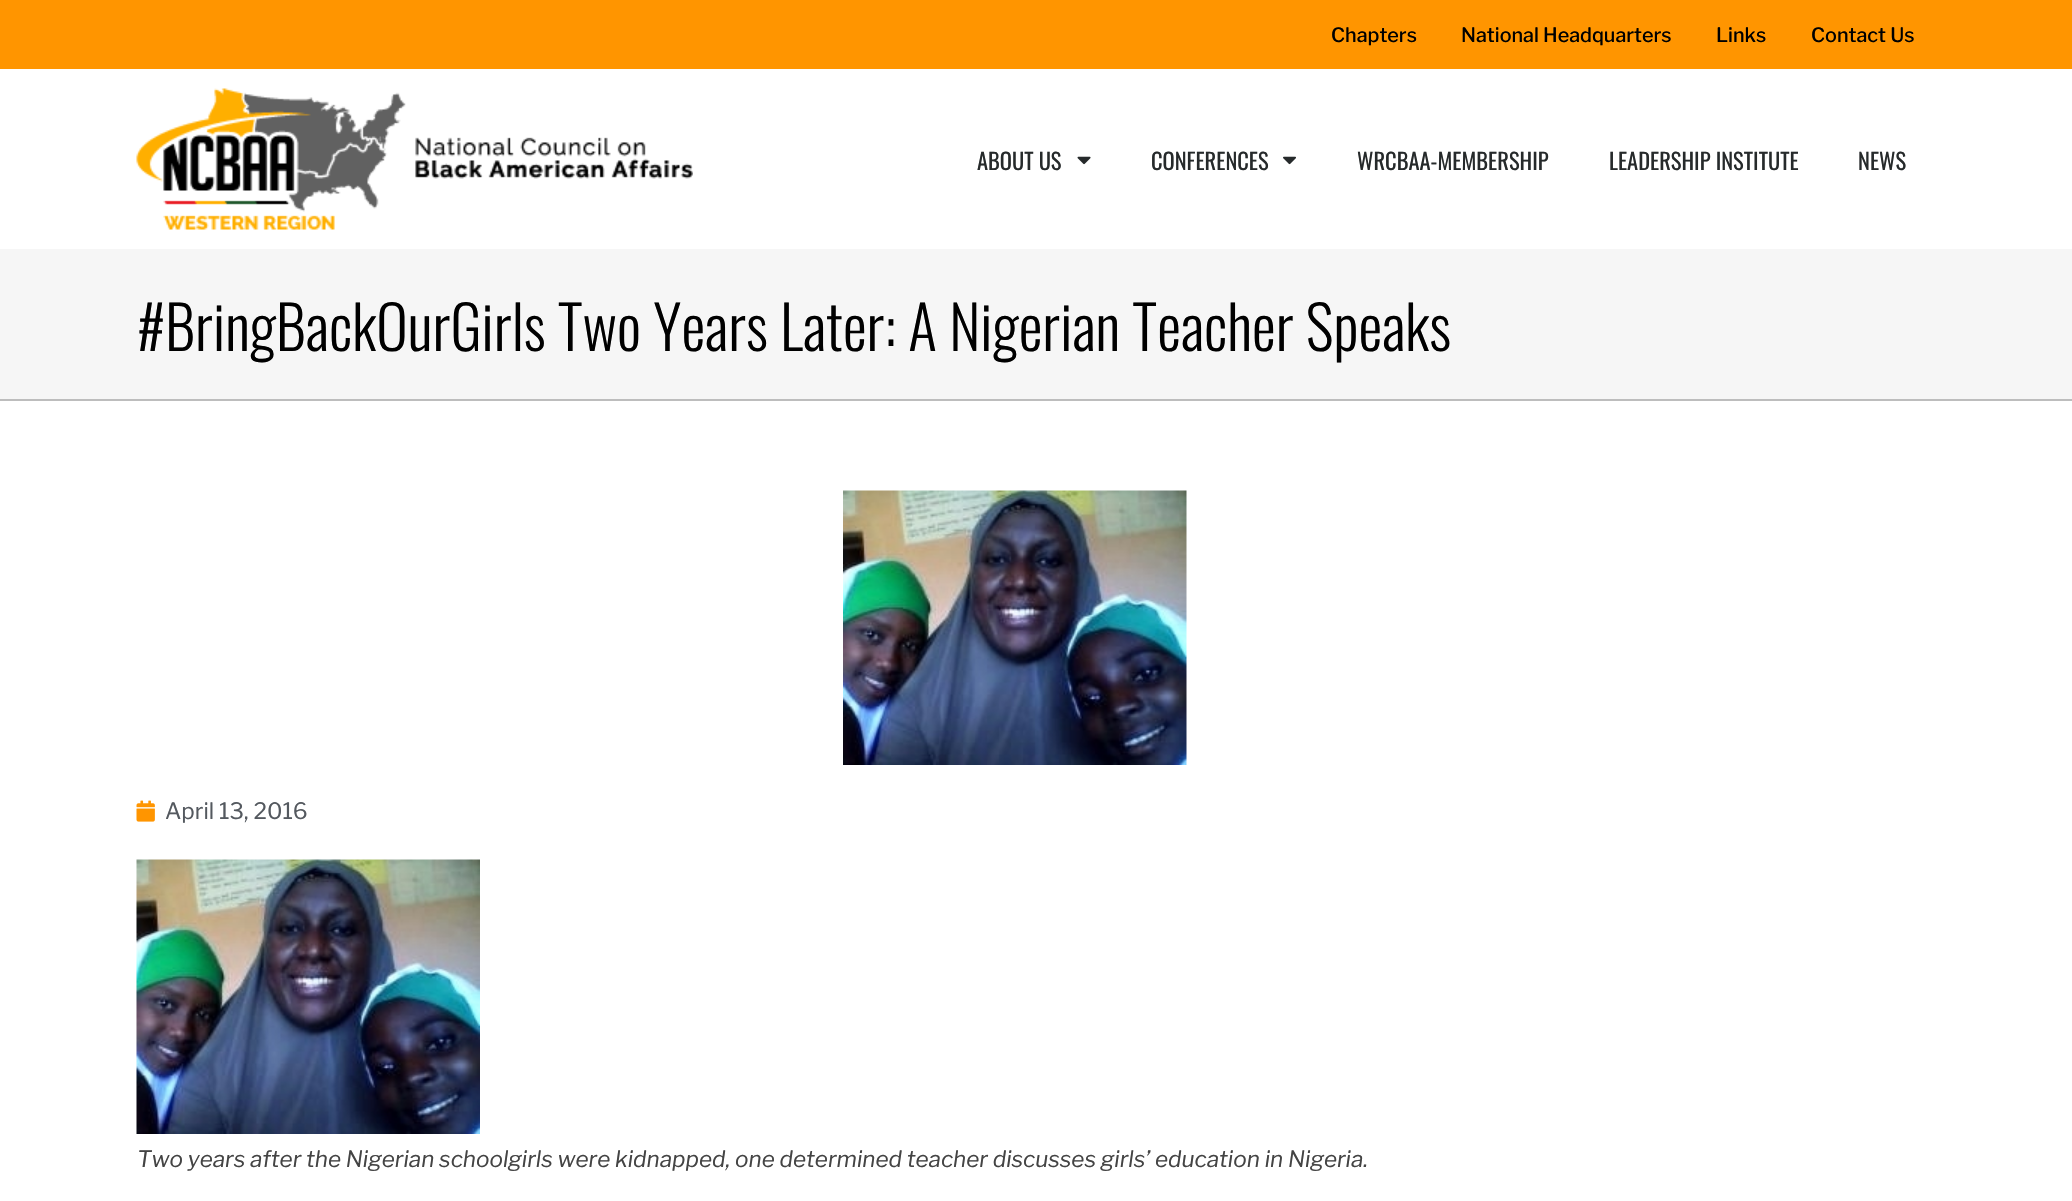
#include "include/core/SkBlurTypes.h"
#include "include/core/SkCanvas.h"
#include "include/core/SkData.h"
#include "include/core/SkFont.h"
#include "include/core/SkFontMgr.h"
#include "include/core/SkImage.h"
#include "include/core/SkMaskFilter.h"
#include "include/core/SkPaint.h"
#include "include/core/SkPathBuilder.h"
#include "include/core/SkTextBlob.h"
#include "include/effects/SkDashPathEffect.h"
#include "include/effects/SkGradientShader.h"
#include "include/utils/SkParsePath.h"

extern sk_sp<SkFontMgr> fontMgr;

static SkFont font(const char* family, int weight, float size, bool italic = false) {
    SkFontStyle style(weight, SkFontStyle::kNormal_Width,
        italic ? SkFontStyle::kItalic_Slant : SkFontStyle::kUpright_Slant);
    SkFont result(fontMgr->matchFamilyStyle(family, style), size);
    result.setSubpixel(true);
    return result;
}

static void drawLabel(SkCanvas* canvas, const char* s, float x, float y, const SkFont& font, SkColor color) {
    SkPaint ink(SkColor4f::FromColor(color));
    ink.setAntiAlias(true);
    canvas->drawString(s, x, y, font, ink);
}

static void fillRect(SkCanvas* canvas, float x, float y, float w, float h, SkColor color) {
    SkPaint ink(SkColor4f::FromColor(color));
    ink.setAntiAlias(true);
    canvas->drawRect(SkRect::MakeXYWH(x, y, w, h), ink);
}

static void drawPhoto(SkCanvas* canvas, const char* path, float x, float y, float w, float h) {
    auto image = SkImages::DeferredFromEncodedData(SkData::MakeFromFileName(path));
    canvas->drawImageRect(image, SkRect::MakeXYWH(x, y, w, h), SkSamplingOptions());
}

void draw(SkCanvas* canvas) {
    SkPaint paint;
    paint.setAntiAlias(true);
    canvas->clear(0xFFFFFFFF);
    fillRect(canvas, 0, 0, 2072, 69, 0xFFFF9500);
    SkFont font1 = font("Libre Franklin", 500, 19.75f);
    drawLabel(canvas, "Chapters", 1331, 42, font1, 0xFF000000);
    drawLabel(canvas, "National Headquarters", 1461, 42, font1, 0xFF000000);
    drawLabel(canvas, "Links", 1716, 42, font1, 0xFF000000);
    drawLabel(canvas, "Contact Us", 1811, 42, font1, 0xFF000000);
    drawPhoto(canvas, "assets/img1.png", 136, 88, 557, 142);
    SkFont font2 = font("Oswald", 400, 22.5f);
    drawLabel(canvas, "ABOUT US", 977, 170, font2, 0xFF262A2B);
    drawPhoto(canvas, "assets/img2.png", 1077, 156, 14, 9);
    drawLabel(canvas, "CONFERENCES", 1151, 170, font2, 0xFF262A2B);
    drawPhoto(canvas, "assets/img3.png", 1283, 156, 13, 9);
    drawLabel(canvas, "WRCBAA-MEMBERSHIP", 1357, 170, font2, 0xFF262A2B);
    drawLabel(canvas, "LEADERSHIP INSTITUTE", 1609, 170, font2, 0xFF262A2B);
    drawLabel(canvas, "NEWS", 1858, 170, font2, 0xFF262A2B);
    fillRect(canvas, 0, 249, 2072, 150, 0xFFF6F6F6);
    fillRect(canvas, 0, 399, 2072, 2, 0xFFBDBDBD);
    SkFont font3 = font("Oswald", 300, 60);
    drawLabel(canvas, "#BringBackOurGirls Two Years Later: A Nigerian Teacher Speaks", 137, 351, font3, 0xFF000000);
    drawPhoto(canvas, "assets/img4.png", 843, 490, 344, 275);
    drawPhoto(canvas, "assets/img5.png", 136, 800, 19, 22);
    SkFont font4 = font("Libre Franklin", 400, 22.5f);
    drawLabel(canvas, "April 13, 2016", 165, 819, font4, 0xFF54595F);
    drawPhoto(canvas, "assets/img6.png", 136, 859, 344, 275);
    SkFont font5 = font("Libre Franklin", 400, 22.5f, true);
    drawLabel(canvas, "Two years after the Nigerian schoolgirls were kidnapped, one determined teacher discusses girls’ education in Nigeria.", 137, 1167, font5, 0xFF444444);
}
